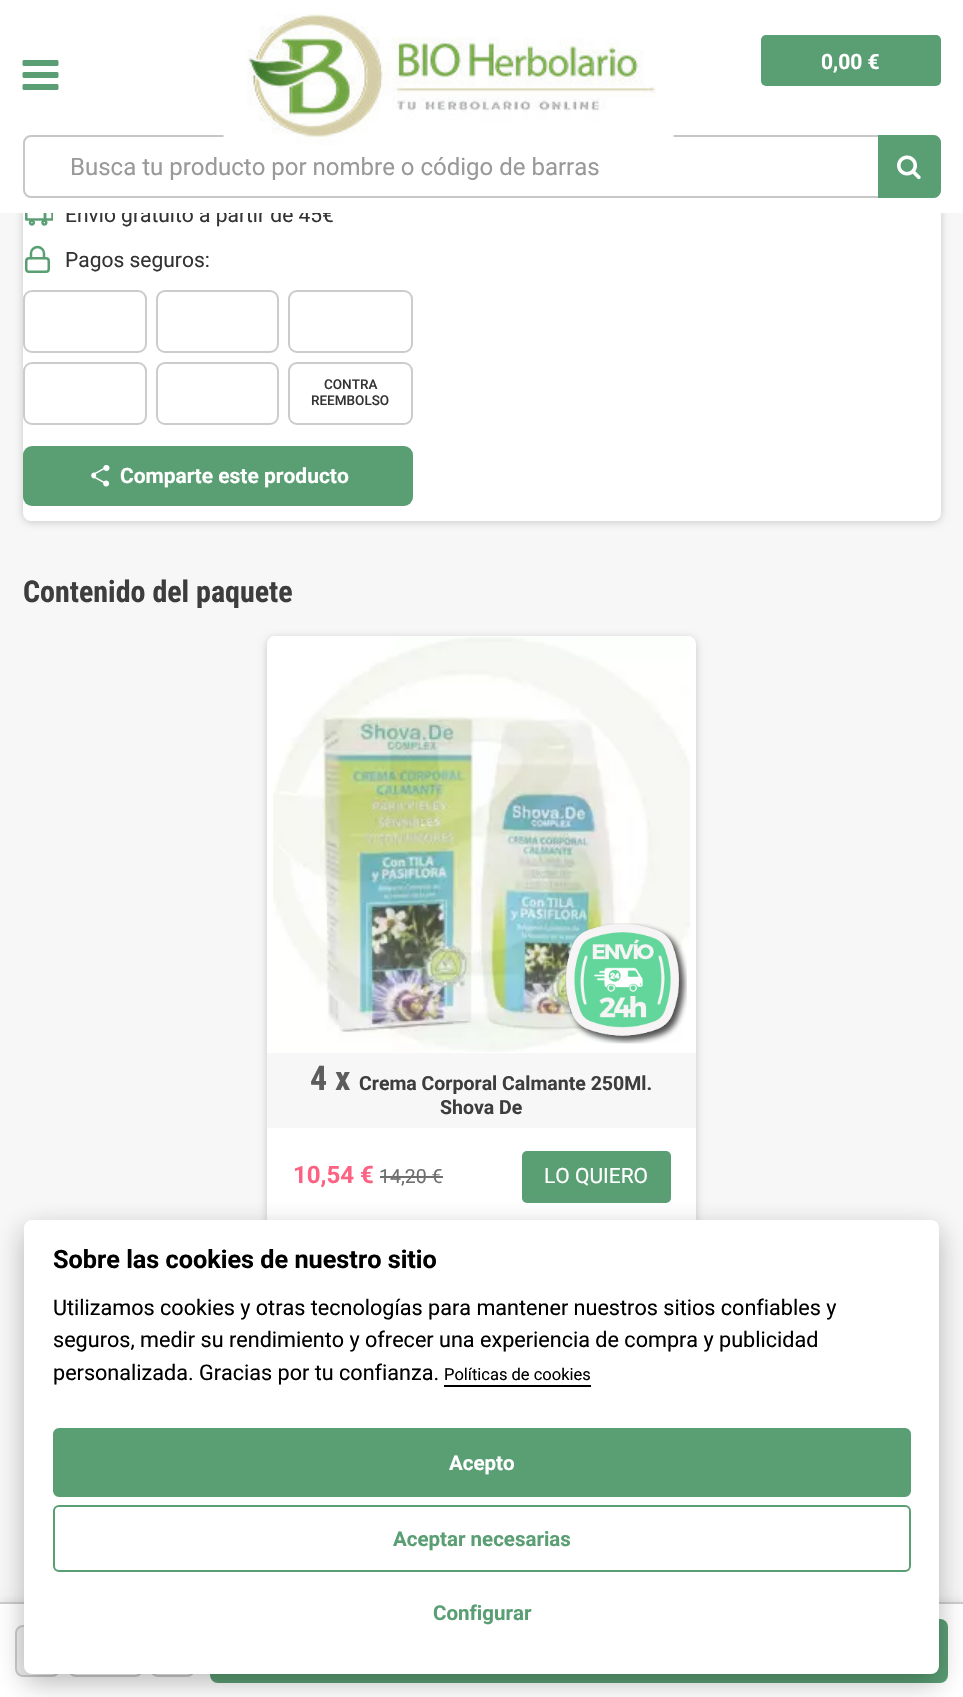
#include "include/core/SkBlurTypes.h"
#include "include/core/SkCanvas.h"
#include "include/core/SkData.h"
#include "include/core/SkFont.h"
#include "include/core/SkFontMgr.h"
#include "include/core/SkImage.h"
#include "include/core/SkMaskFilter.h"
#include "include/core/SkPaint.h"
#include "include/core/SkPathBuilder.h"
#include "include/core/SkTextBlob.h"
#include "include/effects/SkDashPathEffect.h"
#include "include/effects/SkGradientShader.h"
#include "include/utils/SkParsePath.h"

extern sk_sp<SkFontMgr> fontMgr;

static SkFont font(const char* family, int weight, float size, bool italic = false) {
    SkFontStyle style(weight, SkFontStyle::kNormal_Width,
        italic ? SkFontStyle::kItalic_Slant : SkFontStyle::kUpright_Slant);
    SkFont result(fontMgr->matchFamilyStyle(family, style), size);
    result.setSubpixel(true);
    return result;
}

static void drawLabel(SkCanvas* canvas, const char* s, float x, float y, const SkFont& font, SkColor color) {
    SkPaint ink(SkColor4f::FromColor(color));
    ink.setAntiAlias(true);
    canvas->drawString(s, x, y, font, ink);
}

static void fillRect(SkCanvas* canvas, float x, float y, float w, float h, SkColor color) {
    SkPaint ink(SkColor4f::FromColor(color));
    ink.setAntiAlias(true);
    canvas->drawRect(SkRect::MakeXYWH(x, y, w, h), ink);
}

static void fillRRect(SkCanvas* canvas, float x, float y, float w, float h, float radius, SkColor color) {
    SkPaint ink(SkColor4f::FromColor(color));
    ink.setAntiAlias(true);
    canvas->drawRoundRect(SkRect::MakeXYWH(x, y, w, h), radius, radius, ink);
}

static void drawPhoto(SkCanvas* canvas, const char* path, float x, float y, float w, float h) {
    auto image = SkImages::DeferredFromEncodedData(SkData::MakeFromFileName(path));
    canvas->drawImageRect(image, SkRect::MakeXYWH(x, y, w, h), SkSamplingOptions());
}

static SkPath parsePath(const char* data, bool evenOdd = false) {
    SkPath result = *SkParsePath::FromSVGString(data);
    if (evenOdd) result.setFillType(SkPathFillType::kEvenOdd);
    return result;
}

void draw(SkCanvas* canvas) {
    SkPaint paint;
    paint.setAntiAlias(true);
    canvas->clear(0xFFF7F7F7);
    paint.setColor(0xFFC7C7C7);
    paint.setMaskFilter(SkMaskFilter::MakeBlur(kNormal_SkBlurStyle, 4));
    canvas->drawRoundRect(SkRect::MakeXYWH(23, -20, 918, 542), 8, 8, paint);
    paint.setMaskFilter(nullptr);
    fillRRect(canvas, 23, -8, 918, 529, 8, 0xFFFFFFFF);
    SkFont font1 = font("Roboto", 400, 21);
    drawLabel(canvas, "Envío gratuito a partir de 45€", 65, 222, font1, 0xFF333333);
    fillRect(canvas, 0, 0, 963, 213, 0xFFFFFFFF);
    drawPhoto(canvas, "assets/img1.png", 22, 60, 37, 30);
    paint.setStroke(true);
    paint.setStrokeWidth(2);
    canvas->drawRoundRect(SkRect::MakeXYWH(24, 136, 916, 61), 7, 7, paint);
    drawPhoto(canvas, "assets/img2.png", 223, 13, 451, 132);
    fillRRect(canvas, 761, 35, 180, 51, 5, 0xFF5A9E74);
    SkFont font2 = font("Roboto", 700, 21);
    drawLabel(canvas, "0,00 €", 821, 69, font2, 0xFFFFFFFF);
    SkFont font3 = font("Roboto", 400, 24);
    drawLabel(canvas, "Busca tu producto por nombre o código de barras", 70, 175, font3, 0xFF999999);
    paint.setStroke(false);
    paint.setColor(0xFF5A9E74);
    canvas->drawPath(parsePath("M878 135H933C937.5 135 941 138.5 941 143V190C941 194.5 937.5 198 933 198H878Z"), paint);
    drawPhoto(canvas, "assets/img3.png", 897, 155, 24, 25);
    drawPhoto(canvas, "assets/img4.png", 25, 213, 28, 13);
    paint.setStroke(true);
    paint.setStrokeWidth(2.5f);
    canvas->drawRoundRect(SkRect::MakeXYWH(26.25f, 258.25f, 22.5f, 13.5f), 2.75f, 2.75f, paint);
    paint.setStrokeCap(SkPaint::kRound_Cap);
    paint.setStrokeJoin(SkPaint::kRound_Join);
    canvas->drawPath(parsePath("M31 258V253C31 250 34 247 37.5 247C41 247 44 250 44 253V258"), paint);
    drawLabel(canvas, "Pagos seguros:", 65, 267, font1, 0xFF333333);
    paint.setStrokeWidth(2);
    paint.setStrokeCap(SkPaint::kButt_Cap);
    paint.setStrokeJoin(SkPaint::kMiter_Join);
    paint.setColor(0xFFCCCCCC);
    canvas->drawRoundRect(SkRect::MakeXYWH(24, 291, 122, 61), 8, 8, paint);
    canvas->drawRoundRect(SkRect::MakeXYWH(157, 291, 121, 61), 8, 8, paint);
    canvas->drawRoundRect(SkRect::MakeXYWH(289, 291, 123, 61), 8, 8, paint);
    canvas->drawRoundRect(SkRect::MakeXYWH(24, 363, 122, 61), 8, 8, paint);
    canvas->drawRoundRect(SkRect::MakeXYWH(157, 363, 121, 61), 8, 8, paint);
    canvas->drawRoundRect(SkRect::MakeXYWH(289, 363, 123, 61), 8, 8, paint);
    SkFont font4 = font("Roboto", 500, 13.5f);
    drawLabel(canvas, "CONTRA", 324, 389, font4, 0xFF333333);
    drawLabel(canvas, "REEMBOLSO", 311, 405, font4, 0xFF333333);
    fillRRect(canvas, 23, 446, 390, 60, 9, 0xFF5A9E74);
    drawPhoto(canvas, "assets/img5.png", 91, 465, 19, 22);
    drawLabel(canvas, "Comparte este producto", 120, 483, font2, 0xFFFFFFFF);
    SkFont font5 = font("Roboto Condensed", 700, 30);
    drawLabel(canvas, "Contenido del paquete", 23, 602, font5, 0xFF3D3D3D);
    paint.setStroke(false);
    paint.setColor(0xFFC7C7C7);
    paint.setMaskFilter(SkMaskFilter::MakeBlur(kNormal_SkBlurStyle, 4));
    canvas->drawRoundRect(SkRect::MakeXYWH(267, 638, 429, 685), 8, 8, paint);
    paint.setMaskFilter(nullptr);
    fillRRect(canvas, 267, 636, 429, 686, 8, 0xFFFFFFFF);
    drawPhoto(canvas, "assets/img6.png", 273, 636, 417, 416);
    drawPhoto(canvas, "assets/img7.png", 565, 923, 122, 121);
    drawPhoto(canvas, "assets/img8.png", 565, 923, 122, 121);
    fillRect(canvas, 267, 1053, 429, 75, 0xFFF7F7F7);
    SkFont font6 = font("Roboto Condensed", 700, 34);
    drawLabel(canvas, "4 x", 310, 1090, font6, 0xFF5D5D5D);
    SkFont font7 = font("Roboto", 700, 19.5f);
    drawLabel(canvas, "Crema Corporal Calmante 250Ml.", 359, 1090, font7, 0xFF3D3D3D);
    drawLabel(canvas, "Shova De", 440, 1114, font7, 0xFF3D3D3D);
    SkFont font8 = font("Roboto", 700, 24);
    drawLabel(canvas, "10,54 €", 293, 1183, font8, 0xFFFD6282);
    SkFont font9 = font("Roboto", 400, 19.5f);
    drawLabel(canvas, "14,20 €", 379, 1183, font9, 0xFF6F6F6F);
    fillRect(canvas, 380, 1176, 63, 2, 0xFF6F6F6F);
    fillRRect(canvas, 522, 1151, 149, 52, 5, 0xFF5A9E74);
    drawLabel(canvas, "LO QUIERO", 544, 1183, font1, 0xFFFFFFFF);
    fillRect(canvas, 939, 1547, 2, 55, 0xFFF9F7F4);
    paint.setColor(0x1A000000);
    paint.setMaskFilter(SkMaskFilter::MakeBlur(kNormal_SkBlurStyle, 4));
    canvas->drawRect(SkRect::MakeXYWH(0, 1601, 963, 96), paint);
    paint.setMaskFilter(nullptr);
    fillRect(canvas, 0, 1604, 963, 93, 0xFFFFFFFF);
    fillRect(canvas, 0, 1602, 963, 2, 0xFFCCCCCC);
    paint.setColor(0xFFF0F0F0);
    canvas->drawRoundRect(SkRect::MakeXYWH(16, 1626, 43, 50), 7, 7, paint);
    paint.setStroke(true);
    paint.setColor(0xFFCCCCCC);
    canvas->drawRoundRect(SkRect::MakeXYWH(16, 1626, 43, 50), 7, 7, paint);
    canvas->drawRoundRect(SkRect::MakeXYWH(69, 1626, 73, 50), 7, 7, paint);
    paint.setStroke(false);
    paint.setColor(0xFFF0F0F0);
    canvas->drawRoundRect(SkRect::MakeXYWH(151, 1626, 43, 50), 7, 7, paint);
    paint.setStroke(true);
    paint.setColor(0xFFCCCCCC);
    canvas->drawRoundRect(SkRect::MakeXYWH(151, 1626, 43, 50), 7, 7, paint);
    fillRRect(canvas, 210, 1619, 738, 64, 8, 0xFF5A9E74);
    paint.setStroke(false);
    paint.setColor(0x47020203);
    paint.setMaskFilter(SkMaskFilter::MakeBlur(kNormal_SkBlurStyle, 14));
    canvas->drawRoundRect(SkRect::MakeXYWH(24, 1229, 915, 454), 8, 8, paint);
    paint.setMaskFilter(nullptr);
    fillRRect(canvas, 24, 1220, 915, 454, 8, 0xFFFFFFFF);
    SkFont font10 = font("Roboto", 700, 25.25f);
    drawLabel(canvas, "Sobre las cookies de nuestro sitio", 53, 1268, font10, 0xFF000000);
    SkFont font11 = font("Roboto", 400, 21.6f);
    drawLabel(canvas, "Utilizamos cookies y otras tecnologías para mantener nuestros sitios confiables y", 53, 1315, font11, 0xFF000000);
    drawLabel(canvas, "seguros, medir su rendimiento y ofrecer una experiencia de compra y publicidad", 53, 1347, font11, 0xFF000000);
    drawLabel(canvas, "personalizada. Gracias por tu confianza.", 53, 1380, font11, 0xFF000000);
    SkFont font12 = font("Roboto", 400, 16.5f);
    drawLabel(canvas, "Políticas de cookies", 444, 1380, font12, 0xFF000000);
    fillRect(canvas, 444, 1385, 147, 2, 0xFF000000);
    paint.setColor(0xFF5A9E74);
    canvas->drawRoundRect(SkRect::MakeXYWH(54, 1429, 856, 67), 5, 5, paint);
    paint.setStroke(true);
    canvas->drawRoundRect(SkRect::MakeXYWH(54, 1429, 856, 67), 5, 5, paint);
    SkFont font13 = font("Roboto", 700, 20.5f);
    drawLabel(canvas, "Acepto", 449, 1470, font13, 0xFFFFFFFF);
    canvas->drawRoundRect(SkRect::MakeXYWH(54, 1506, 856, 65), 5, 5, paint);
    drawLabel(canvas, "Aceptar necesarias", 393, 1546, font13, 0xFF5A9E74);
    drawLabel(canvas, "Configurar", 433, 1620, font13, 0xFF5A9E74);
}
